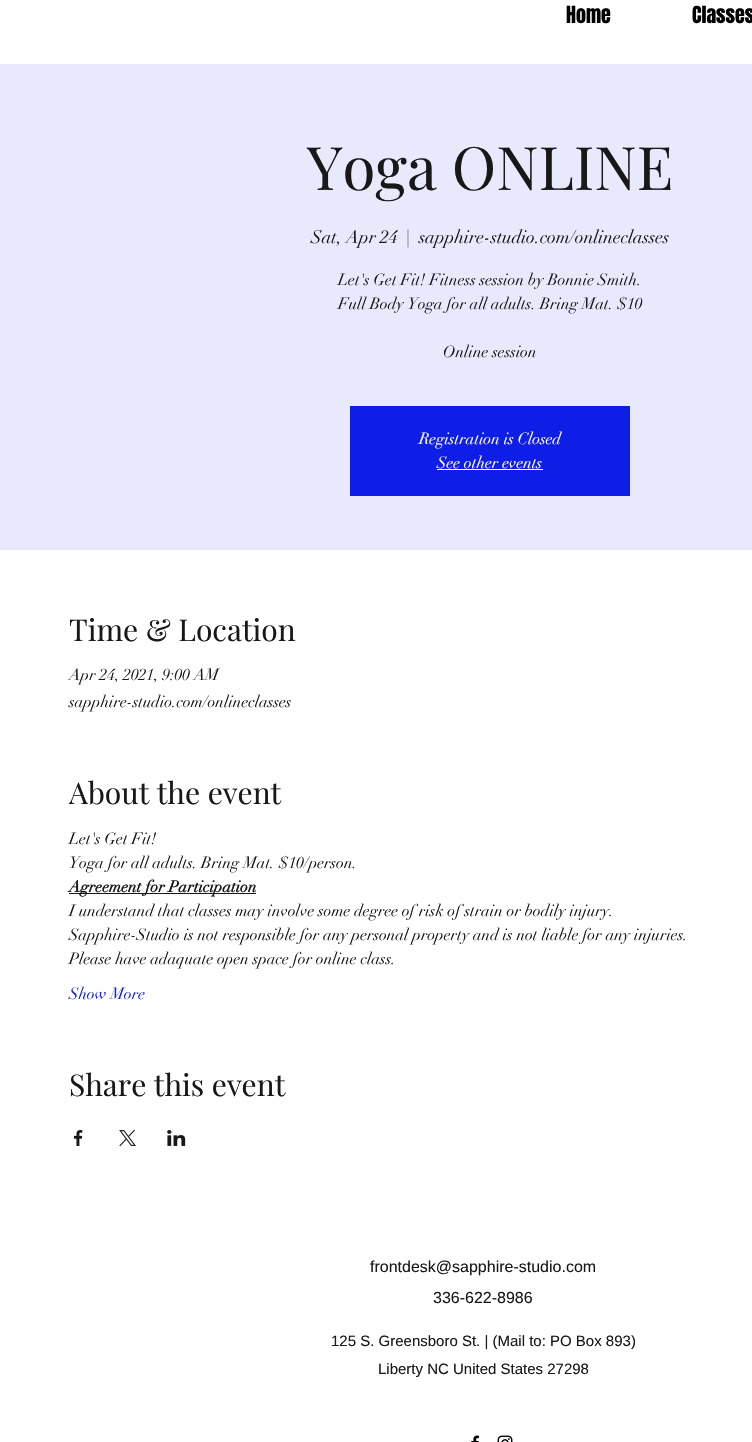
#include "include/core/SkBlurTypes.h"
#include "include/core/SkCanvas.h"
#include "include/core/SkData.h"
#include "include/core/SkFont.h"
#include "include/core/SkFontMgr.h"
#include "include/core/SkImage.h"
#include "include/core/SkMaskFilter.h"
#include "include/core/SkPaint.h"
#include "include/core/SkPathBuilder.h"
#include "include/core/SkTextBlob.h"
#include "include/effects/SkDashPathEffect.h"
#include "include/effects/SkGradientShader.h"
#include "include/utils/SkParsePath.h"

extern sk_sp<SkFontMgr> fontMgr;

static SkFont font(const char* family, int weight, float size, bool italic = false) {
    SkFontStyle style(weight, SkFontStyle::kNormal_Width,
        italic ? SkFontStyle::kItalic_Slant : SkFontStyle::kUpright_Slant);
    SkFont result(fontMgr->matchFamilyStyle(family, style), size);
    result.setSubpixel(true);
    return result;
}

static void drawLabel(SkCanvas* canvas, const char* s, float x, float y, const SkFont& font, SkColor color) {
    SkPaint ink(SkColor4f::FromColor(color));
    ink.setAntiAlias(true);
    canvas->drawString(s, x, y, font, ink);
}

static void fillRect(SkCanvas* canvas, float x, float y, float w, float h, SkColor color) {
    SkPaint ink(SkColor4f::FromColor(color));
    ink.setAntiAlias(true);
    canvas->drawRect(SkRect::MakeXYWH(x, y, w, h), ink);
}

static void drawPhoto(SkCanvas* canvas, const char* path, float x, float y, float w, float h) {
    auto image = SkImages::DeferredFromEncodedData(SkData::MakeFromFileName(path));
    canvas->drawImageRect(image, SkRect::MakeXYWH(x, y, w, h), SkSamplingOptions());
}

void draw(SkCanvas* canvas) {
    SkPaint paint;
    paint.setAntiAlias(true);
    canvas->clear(0xFFFFFFFF);
    SkFont font1 = font("Anton", 400, 20);
    drawLabel(canvas, "Home", 566, 23, font1, 0xFF000000);
    drawLabel(canvas, "Classes", 692, 23, font1, 0xFF000000);
    fillRect(canvas, 0, 64, 752, 486, 0xFFE8E9FD);
    SkFont font2 = font("Playfair Display", 400, 60);
    drawLabel(canvas, "Yoga ONLINE", 307, 190, font2, 0xFF181818);
    SkFont font3 = font("didot", 400, 18);
    drawLabel(canvas, "Sat, Apr 24", 311, 243, font3, 0xFF181818);
    drawLabel(canvas, "|", 406, 243, font3, 0xFF181818);
    drawLabel(canvas, "sapphire-studio.com/onlineclasses", 419, 243, font3, 0xFF181818);
    SkFont font4 = font("didot", 400, 16);
    drawLabel(canvas, "Let's Get Fit! Fitness session by Bonnie Smith.", 338, 285, font4, 0xFF181818);
    drawLabel(canvas, "Full Body Yoga for all adults. Bring Mat. $10", 338, 309, font4, 0xFF181818);
    drawLabel(canvas, "Online session", 443, 357, font4, 0xFF181818);
    fillRect(canvas, 350, 406, 280, 90, 0xFF0F1EE6);
    drawLabel(canvas, "Registration is Closed", 419, 444, font4, 0xFFFFFFFF);
    drawLabel(canvas, "See other events", 437, 468, font4, 0xFFFFFFFF);
    fillRect(canvas, 437, 469, 106, 1, 0xFFFFFFFF);
    SkFont font5 = font("Playfair Display", 400, 30);
    drawLabel(canvas, "Time & Location", 69, 641, font5, 0xFF181818);
    drawLabel(canvas, "Apr 24, 2021, 9:00 AM", 69, 680, font4, 0xFF181818);
    drawLabel(canvas, "sapphire-studio.com/onlineclasses", 69, 707, font4, 0xFF181818);
    drawLabel(canvas, "About the event", 69, 804, font5, 0xFF181818);
    drawLabel(canvas, "Let's Get Fit!", 69, 844, font4, 0xFF181818);
    drawLabel(canvas, "Yoga for all adults. Bring Mat. $10/person.", 69, 868, font4, 0xFF181818);
    fillRect(canvas, 69, 893, 187, 1, 0xFF181818);
    SkFont font6 = font("didot", 700, 16);
    drawLabel(canvas, "Agreement for Participation", 69, 892, font6, 0xFF181818);
    drawLabel(canvas, "I understand that classes may involve some degree of risk of strain or bodily injury.", 69, 916, font4, 0xFF181818);
    drawLabel(canvas, "Sapphire-Studio is not responsible for any personal property and is not liable for any injuries.", 69, 940, font4, 0xFF181818);
    drawLabel(canvas, "Please have adaquate open space for online class.", 69, 964, font4, 0xFF181818);
    drawLabel(canvas, "Show More", 69, 999, font4, 0xFF0F1EE6);
    drawLabel(canvas, "Share this event", 69, 1096, font5, 0xFF181818);
    drawPhoto(canvas, "assets/img1.png", 74, 1130, 9, 16);
    drawPhoto(canvas, "assets/img2.png", 119, 1130, 17, 16);
    drawPhoto(canvas, "assets/img3.png", 167, 1130, 19, 16);
    SkFont font7 = font("Liberation Sans", 400, 16);
    drawLabel(canvas, "frontdesk@sapphire-studio.com", 370, 1272, font7, 0xFF181818);
    drawLabel(canvas, "336-622-8986", 433, 1303, font7, 0xFF181818);
    SkFont font8 = font("Liberation Sans", 400, 15);
    drawLabel(canvas, "125 S. Greensboro St. | (Mail to: PO Box 893)", 331, 1346, font8, 0xFF181818);
    drawLabel(canvas, "Liberty NC United States 27298", 378, 1374, font8, 0xFF181818);
    drawPhoto(canvas, "assets/img4.png", 471, 1435, 9, 7);
    drawPhoto(canvas, "assets/img5.png", 497, 1435, 16, 7);
}
